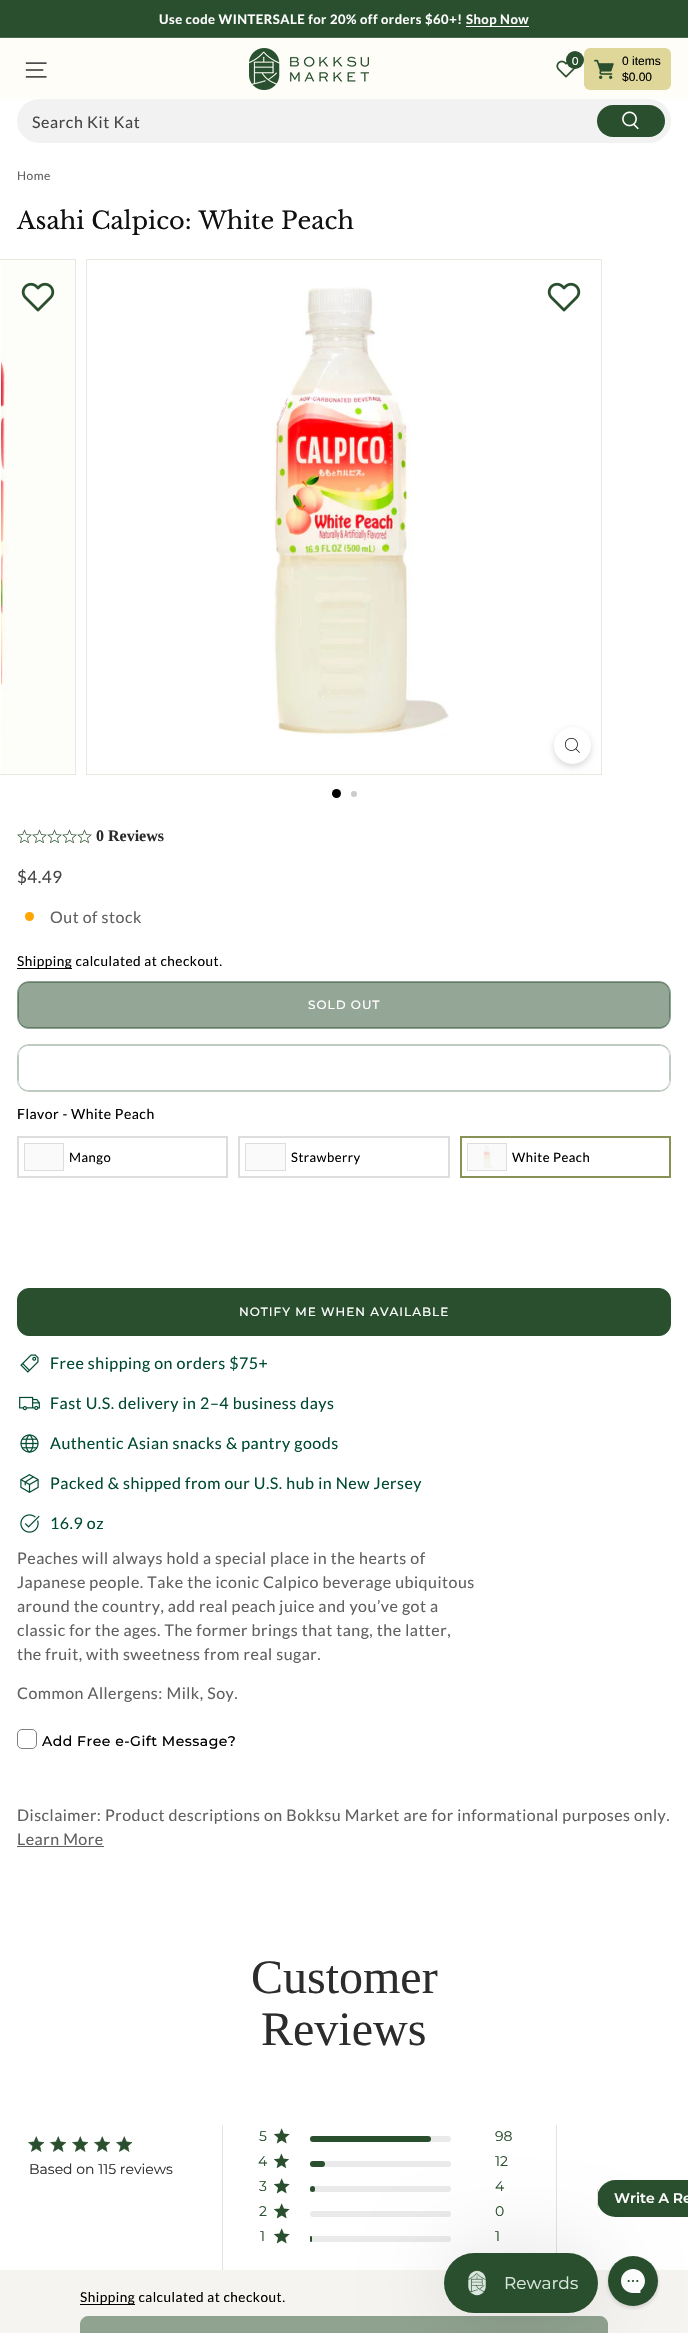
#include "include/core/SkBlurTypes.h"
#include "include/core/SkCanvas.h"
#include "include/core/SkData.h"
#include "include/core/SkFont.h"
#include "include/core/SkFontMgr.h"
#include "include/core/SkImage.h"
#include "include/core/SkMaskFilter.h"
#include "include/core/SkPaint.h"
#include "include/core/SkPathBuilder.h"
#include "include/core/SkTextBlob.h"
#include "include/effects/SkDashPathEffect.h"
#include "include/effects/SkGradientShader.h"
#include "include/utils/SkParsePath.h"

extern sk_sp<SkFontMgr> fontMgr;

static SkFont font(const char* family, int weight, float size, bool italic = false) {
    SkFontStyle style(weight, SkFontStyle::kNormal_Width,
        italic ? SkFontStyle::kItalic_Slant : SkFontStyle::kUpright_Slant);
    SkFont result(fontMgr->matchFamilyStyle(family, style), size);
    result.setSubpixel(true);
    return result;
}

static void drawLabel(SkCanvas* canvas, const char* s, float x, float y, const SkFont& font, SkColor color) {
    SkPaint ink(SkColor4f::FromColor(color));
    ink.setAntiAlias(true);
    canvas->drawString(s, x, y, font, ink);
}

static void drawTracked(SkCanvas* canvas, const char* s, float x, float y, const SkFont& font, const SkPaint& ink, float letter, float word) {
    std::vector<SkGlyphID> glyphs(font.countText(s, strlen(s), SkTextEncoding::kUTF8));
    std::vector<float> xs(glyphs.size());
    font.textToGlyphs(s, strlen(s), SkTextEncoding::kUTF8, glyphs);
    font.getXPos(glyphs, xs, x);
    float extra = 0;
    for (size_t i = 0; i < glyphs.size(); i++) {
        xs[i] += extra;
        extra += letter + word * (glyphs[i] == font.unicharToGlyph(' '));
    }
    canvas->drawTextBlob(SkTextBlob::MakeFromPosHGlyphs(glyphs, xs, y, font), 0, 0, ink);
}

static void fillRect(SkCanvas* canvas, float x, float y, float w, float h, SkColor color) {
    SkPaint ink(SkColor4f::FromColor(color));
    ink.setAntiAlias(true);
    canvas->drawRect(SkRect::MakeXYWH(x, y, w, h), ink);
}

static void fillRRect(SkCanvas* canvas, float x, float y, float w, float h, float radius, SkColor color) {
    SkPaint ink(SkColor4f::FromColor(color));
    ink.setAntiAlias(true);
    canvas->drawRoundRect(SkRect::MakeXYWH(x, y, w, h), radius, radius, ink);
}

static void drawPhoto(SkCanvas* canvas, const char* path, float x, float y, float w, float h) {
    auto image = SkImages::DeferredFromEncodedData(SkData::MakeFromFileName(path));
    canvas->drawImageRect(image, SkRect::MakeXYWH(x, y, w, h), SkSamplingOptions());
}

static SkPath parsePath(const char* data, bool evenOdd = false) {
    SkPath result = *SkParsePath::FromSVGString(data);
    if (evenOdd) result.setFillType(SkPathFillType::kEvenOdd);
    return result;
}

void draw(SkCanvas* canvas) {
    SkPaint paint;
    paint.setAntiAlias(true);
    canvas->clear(0xFFFFFFFF);
    fillRect(canvas, 468, 1144, 38, 26, 0xFFFAFAFA);
    fillRect(canvas, 0, 0, 688, 37, 0xFF294F2E);
    SkFont font1 = font("Lato", 700, 13);
    paint.setColor(0xFFFFFFFF);
    drawTracked(canvas, "Use code WINTERSALE for 20% off orders $60+!", 159, 24, font1, paint, 0.5f, 0);
    fillRect(canvas, 466, 26, 63, 1, 0xFFFFFFFF);
    drawTracked(canvas, "Shop Now", 466, 24, font1, paint, 0.5f, 0);
    fillRect(canvas, 0, 37, 688, 1, 0xFF49694D);
    fillRect(canvas, 0, 38, 688, 61, 0xFFFEFDF8);
    drawPhoto(canvas, "assets/img1.png", 25, 62, 22, 16);
    drawPhoto(canvas, "assets/img2.png", 249, 48, 120, 42);
    drawPhoto(canvas, "assets/img3.png", 556, 60, 20, 18);
    paint.setColor(0xFF294F2E);
    canvas->drawCircle(575, 60, 9, paint);
    SkFont font2 = font("Lato", 400, 11);
    paint.setColor(0xFFFFFFFF);
    drawTracked(canvas, "0", 572, 65, font2, paint, 0.5f, 0);
    fillRRect(canvas, 584, 48, 87, 42, 6, 0xFFDED799);
    drawPhoto(canvas, "assets/img4.png", 594, 59, 20, 20);
    SkFont font3 = font("Liberation Sans", 400, 12);
    drawLabel(canvas, "0", 622, 65, font3, 0xFF000000);
    drawLabel(canvas, "items", 632, 65, font3, 0xFF000000);
    drawLabel(canvas, "$0.00", 622, 81, font3, 0xFF000000);
    fillRRect(canvas, 17, 99, 654, 44, 22, 0xFFF2F2F2);
    SkFont font4 = font("Lato", 400, 16);
    paint.setColor(0xFF444444);
    drawTracked(canvas, "Search Kit Kat", 32, 128, font4, paint, 0.6f, 0);
    fillRRect(canvas, 597, 105, 68, 32, 16, 0xFF294F2E);
    drawPhoto(canvas, "assets/img5.png", 622, 111, 17, 19);
    SkFont font5 = font("Lato", 400, 12);
    paint.setColor(0xFF606060);
    drawTracked(canvas, "Home", 17, 180, font5, paint, 0.5f, 0);
    SkFont font6 = font("Libre Baskerville", 400, 24);
    drawLabel(canvas, "Asahi Calpico: White Peach", 17, 229, font6, 0xFF101010);
    paint.setStroke(true);
    paint.setStrokeWidth(1);
    paint.setColor(0xFFE8E8E1);
    canvas->drawRect(SkRect::MakeXYWH(-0.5f, 259.5f, 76, 515), paint);
    drawPhoto(canvas, "assets/img6.png", 1, 260, 74, 514);
    drawPhoto(canvas, "assets/img7.png", 21, 282, 34, 30);
    canvas->drawRect(SkRect::MakeXYWH(86.5f, 259.5f, 515, 515), paint);
    drawPhoto(canvas, "assets/img8.png", 547, 282, 34, 30);
    drawPhoto(canvas, "assets/img9.png", 273, 287, 176, 450);
    paint.setStroke(false);
    paint.setColor(0x26000000);
    paint.setMaskFilter(SkMaskFilter::MakeBlur(kNormal_SkBlurStyle, 3));
    canvas->drawRoundRect(SkRect::MakeXYWH(554, 730, 37, 37), 18.5f, 18.5f, paint);
    paint.setMaskFilter(nullptr);
    paint.setColor(0xFFFFFFFF);
    canvas->drawCircle(572.5f, 745.5f, 18.5f, paint);
    drawPhoto(canvas, "assets/img10.png", 564, 737, 16, 16);
    paint.setColor(0xFF000000);
    canvas->drawCircle(336.5f, 793.5f, 4.5f, paint);
    paint.setColor(0xFFCCCCCC);
    canvas->drawCircle(354, 794, 3, paint);
    drawPhoto(canvas, "assets/img11.png", 17, 829, 15, 14);
    drawPhoto(canvas, "assets/img11.png", 32, 829, 15, 14);
    drawPhoto(canvas, "assets/img11.png", 47, 829, 15, 14);
    drawPhoto(canvas, "assets/img11.png", 62, 829, 15, 14);
    drawPhoto(canvas, "assets/img11.png", 77, 829, 15, 14);
    SkFont font7 = font("Liberation Serif", 700, 16);
    drawLabel(canvas, "0 Reviews", 96, 841, font7, 0xFF2C2C2C);
    SkFont font8 = font("Lato", 400, 17);
    paint.setColor(0xFF444444);
    drawTracked(canvas, "$4.49", 17, 883, font8, paint, 0.5f, 0);
    paint.setColor(0xFFFFA500);
    canvas->drawCircle(29.5f, 916.5f, 4.5f, paint);
    paint.setColor(0xFF606060);
    drawTracked(canvas, "Out of stock", 50, 923, font4, paint, 0.5f, 0);
    fillRect(canvas, 17, 968, 55, 1, 0xFF000000);
    SkFont font9 = font("Lato", 400, 13.6f);
    paint.setColor(0xFF000000);
    drawTracked(canvas, "Shipping calculated at checkout.", 17, 966, font9, paint, 0.5f, 0);
    paint.setColor(0xFF94A797);
    canvas->drawRoundRect(SkRect::MakeXYWH(17.5f, 981.5f, 653, 47), 11.5f, 11.5f, paint);
    paint.setStroke(true);
    canvas->drawRoundRect(SkRect::MakeXYWH(17.5f, 981.5f, 653, 47), 11.5f, 11.5f, paint);
    paint.setStroke(false);
    paint.setColor(0xFF5F7B63);
    canvas->drawPath(parsePath("M29 982C16 982 18 996 18 1005C18 1014 16 1028 29 1028H659C672 1028 670 1014 670 1005C670 996 672 982 659 982ZM28 983C23 983 19 987 19 992V1018C19 1023 23 1027 28 1027H660C665 1027 669 1023 669 1018V992C669 987 665 983 660 983Z", true), paint);
    SkFont font10 = font("Montserrat", 500, 12);
    paint.setColor(0xFFFFFFFF);
    drawTracked(canvas, "SOLD OUT", 308, 1009, font10, paint, 1, 0);
    paint.setStroke(true);
    paint.setColor(0xFFBFCAC0);
    canvas->drawRoundRect(SkRect::MakeXYWH(17.5f, 1044.5f, 653, 47), 11.5f, 11.5f, paint);
    fillRRect(canvas, 18, 1045, 652, 46, 11, 0xFFFFFFFF);
    paint.setStroke(false);
    paint.setColor(0x4D294F2E);
    canvas->drawPath(parsePath("M29 1045C16 1045 18 1059 18 1068C18 1077 16 1091 29 1091H659C672 1091 670 1077 670 1068C670 1059 672 1045 659 1045ZM28 1046C23 1046 19 1050 19 1055V1081C19 1086 23 1090 28 1090H660C665 1090 669 1086 669 1081V1055C669 1050 665 1046 660 1046Z", true), paint);
    SkFont font11 = font("Lato", 400, 14);
    paint.setColor(0xFF000000);
    drawTracked(canvas, "Flavor - White Peach", 17, 1119, font11, paint, 0.5f, 0);
    paint.setStroke(true);
    paint.setStrokeWidth(2);
    paint.setColor(0xFFDDDDDD);
    canvas->drawRect(SkRect::MakeXYWH(18, 1137, 209, 40), paint);
    paint.setStrokeWidth(1);
    canvas->drawRect(SkRect::MakeXYWH(24.5f, 1143.5f, 39, 27), paint);
    fillRect(canvas, 25, 1144, 38, 26, 0xFFFAFAFA);
    SkFont font12 = font("Lato", 400, 13);
    paint.setStroke(false);
    paint.setColor(0xFF000000);
    drawTracked(canvas, "Mango", 69, 1162, font12, paint, 0.5f, 0);
    paint.setStroke(true);
    paint.setStrokeWidth(2);
    paint.setColor(0xFFDDDDDD);
    canvas->drawRect(SkRect::MakeXYWH(239, 1137, 210, 40), paint);
    paint.setStrokeWidth(1);
    canvas->drawRect(SkRect::MakeXYWH(245.5f, 1143.5f, 40, 27), paint);
    fillRect(canvas, 246, 1144, 39, 26, 0xFFFAFAFA);
    paint.setStroke(false);
    paint.setColor(0xFF000000);
    drawTracked(canvas, "Strawberry", 291, 1162, font12, paint, 0.5f, 0);
    paint.setStroke(true);
    paint.setStrokeWidth(2);
    paint.setColor(0xFF879355);
    canvas->drawRect(SkRect::MakeXYWH(461, 1137, 209, 40), paint);
    drawPhoto(canvas, "assets/img12.png", 483, 1145, 10, 24);
    paint.setStrokeWidth(1);
    paint.setColor(0xFFDDDDDD);
    canvas->drawRect(SkRect::MakeXYWH(467.5f, 1143.5f, 39, 27), paint);
    paint.setStroke(false);
    paint.setColor(0xFF000000);
    drawTracked(canvas, "White Peach", 512, 1162, font12, paint, 0.5f, 0);
    paint.setColor(0xFF294F2E);
    canvas->drawRoundRect(SkRect::MakeXYWH(17.5f, 1288.5f, 653, 47), 11.5f, 11.5f, paint);
    paint.setStroke(true);
    canvas->drawRoundRect(SkRect::MakeXYWH(17.5f, 1288.5f, 653, 47), 11.5f, 11.5f, paint);
    paint.setStroke(false);
    paint.setColor(0xFFFFFFFF);
    drawTracked(canvas, "NOTIFY ME WHEN AVAILABLE", 239, 1316, font10, paint, 1, 0);
    drawPhoto(canvas, "assets/img13.png", 20, 1354, 19, 19);
    paint.setColor(0xFF004A32);
    drawTracked(canvas, "Free shipping on orders $75+", 50, 1369, font4, paint, 0.5f, 0);
    drawPhoto(canvas, "assets/img14.png", 19, 1396, 21, 15);
    drawTracked(canvas, "Fast U.S. delivery in 2–4 business days", 50, 1409, font4, paint, 0.5f, 0);
    drawPhoto(canvas, "assets/img15.png", 20, 1434, 19, 19);
    drawTracked(canvas, "Authentic Asian snacks & pantry goods", 50, 1449, font4, paint, 0.5f, 0);
    drawPhoto(canvas, "assets/img16.png", 20, 1474, 19, 19);
    drawTracked(canvas, "Packed & shipped from our U.S. hub in New Jersey", 50, 1489, font4, paint, 0.5f, 0);
    drawPhoto(canvas, "assets/img17.png", 20, 1514, 20, 19);
    drawTracked(canvas, "16.9 oz", 50, 1529, font4, paint, 0.5f, 0);
    paint.setColor(0xFF606060);
    drawTracked(canvas, "Peaches will always hold a special place in the hearts of", 17, 1564, font4, paint, 0.5f, 0);
    drawTracked(canvas, "Japanese people. Take the iconic Calpico beverage ubiquitous", 17, 1588, font4, paint, 0.5f, 0);
    drawTracked(canvas, "around the country, add real peach juice and you’ve got a", 17, 1612, font4, paint, 0.5f, 0);
    drawTracked(canvas, "classic for the ages. The former brings that tang, the latter,", 17, 1636, font4, paint, 0.5f, 0);
    drawTracked(canvas, "the fruit, with sweetness from real sugar.", 17, 1660, font4, paint, 0.5f, 0);
    drawTracked(canvas, "Common Allergens: Milk, Soy.", 17, 1699, font4, paint, 0.5f, 0);
    paint.setStroke(true);
    paint.setColor(0xFF808080);
    canvas->drawRoundRect(SkRect::MakeXYWH(17.5f, 1729.5f, 19, 19), 4.5f, 4.5f, paint);
    SkFont font13 = font("Montserrat", 500, 14);
    paint.setStroke(false);
    paint.setColor(0xFF000000);
    drawTracked(canvas, "Add Free e-Gift Message?", 42, 1746, font13, paint, 0.5f, 0);
    paint.setColor(0xFF606060);
    drawTracked(canvas, "Disclaimer: Product descriptions on Bokksu Market are for informational purposes only.", 17, 1821, font4, paint, 0.5f, 0);
    drawTracked(canvas, "Learn More", 17, 1845, font4, paint, 0.5f, 0);
    fillRect(canvas, 17, 1846, 87, 1, 0xFF606060);
    fillRect(canvas, 222, 2125, 1, 148, 0xFFE3E3E3);
    fillRect(canvas, 0, 2270, 688, 63, 0xFFF6F4F1);
    fillRect(canvas, 80, 2304, 55, 1, 0xFF000000);
    paint.setColor(0xFF000000);
    drawTracked(canvas, "Shipping calculated at checkout.", 80, 2302, font9, paint, 0.5f, 0);
    paint.setColor(0xFF90A290);
    canvas->drawRoundRect(SkRect::MakeXYWH(80.5f, 2316.5f, 527, 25), 7.5f, 7.5f, paint);
    paint.setStroke(true);
    canvas->drawRoundRect(SkRect::MakeXYWH(80.5f, 2316.5f, 527, 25), 7.5f, 7.5f, paint);
    SkFont font14 = font("Liberation Serif", 400, 48);
    drawLabel(canvas, "Customer", 251, 1993, font14, 0xFF2C2C2C);
    drawLabel(canvas, "Reviews", 261, 2045, font14, 0xFF2C2C2C);
    drawPhoto(canvas, "assets/img18.png", 28, 2136, 16, 16);
    drawPhoto(canvas, "assets/img18.png", 50, 2136, 16, 16);
    drawPhoto(canvas, "assets/img18.png", 72, 2136, 16, 16);
    drawPhoto(canvas, "assets/img18.png", 94, 2136, 16, 16);
    drawPhoto(canvas, "assets/img18.png", 116, 2136, 16, 16);
    SkFont font15 = font("Montserrat", 400, 14);
    drawLabel(canvas, "Based on 115 reviews", 29, 2174, font15, 0xFF2C2C2C);
    fillRect(canvas, 556, 2125, 1, 128, 0xFFE3E3E3);
    drawLabel(canvas, "5", 259, 2141, font15, 0xFF294F2E);
    drawPhoto(canvas, "assets/img19.png", 274, 2128, 16, 16);
    fillRRect(canvas, 310, 2136, 141, 6, 3, 0xFFEAEAEA);
    fillRRect(canvas, 310, 2136, 121, 6, 3, 0xFF294F2E);
    drawLabel(canvas, "98", 495, 2141, font15, 0xFF294F2E);
    drawLabel(canvas, "4", 258, 2166, font15, 0xFF294F2E);
    drawPhoto(canvas, "assets/img20.png", 274, 2153, 15, 16);
    fillRRect(canvas, 310, 2161, 141, 6, 3, 0xFFEAEAEA);
    fillRRect(canvas, 310, 2161, 15, 6, 3, 0xFF294F2E);
    drawLabel(canvas, "12", 495, 2166, font15, 0xFF294F2E);
    drawLabel(canvas, "3", 259, 2191, font15, 0xFF294F2E);
    drawPhoto(canvas, "assets/img19.png", 274, 2178, 16, 16);
    fillRRect(canvas, 310, 2186, 141, 6, 3, 0xFFEAEAEA);
    fillRRect(canvas, 310, 2186, 5, 6, 2.5f, 0xFF294F2E);
    drawLabel(canvas, "4", 495, 2191, font15, 0xFF294F2E);
    drawLabel(canvas, "2", 259, 2216, font15, 0xFF294F2E);
    drawPhoto(canvas, "assets/img19.png", 274, 2203, 16, 16);
    fillRRect(canvas, 310, 2211, 141, 6, 3, 0xFFEAEAEA);
    drawLabel(canvas, "0", 495, 2216, font15, 0xFF294F2E);
    drawLabel(canvas, "1", 260, 2241, font15, 0xFF294F2E);
    drawPhoto(canvas, "assets/img19.png", 274, 2228, 16, 16);
    fillRRect(canvas, 310, 2236, 141, 6, 3, 0xFFEAEAEA);
    fillRRect(canvas, 310, 2236, 2, 6, 1, 0xFF294F2E);
    drawLabel(canvas, "1", 495, 2241, font15, 0xFF294F2E);
    fillRRect(canvas, 597, 2180, 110, 37, 18.5f, 0xFF294F2E);
    fillRect(canvas, 597, 2189, 1, 19, 0xFFE3E3E3);
    SkFont font16 = font("Montserrat", 600, 14);
    drawLabel(canvas, "Write A Re", 614, 2203, font16, 0xFFFFFFFF);
    drawPhoto(canvas, "assets/img22.png", 606, 2256, 54, 54);
    paint.setStroke(false);
    paint.setColor(0x1F000000);
    paint.setMaskFilter(SkMaskFilter::MakeBlur(kNormal_SkBlurStyle, 40));
    canvas->drawRoundRect(SkRect::MakeXYWH(444, 2253, 154, 60), 30, 30, paint);
    paint.setMaskFilter(nullptr);
    fillRRect(canvas, 444, 2253, 154, 60, 30, 0xFF294F2E);
    drawPhoto(canvas, "assets/img21.png", 468, 2270, 18, 26);
    SkFont font17 = font("Montserrat", 400, 17);
    drawLabel(canvas, "Rewards", 504, 2289, font17, 0xFFDBE8DF);
}
